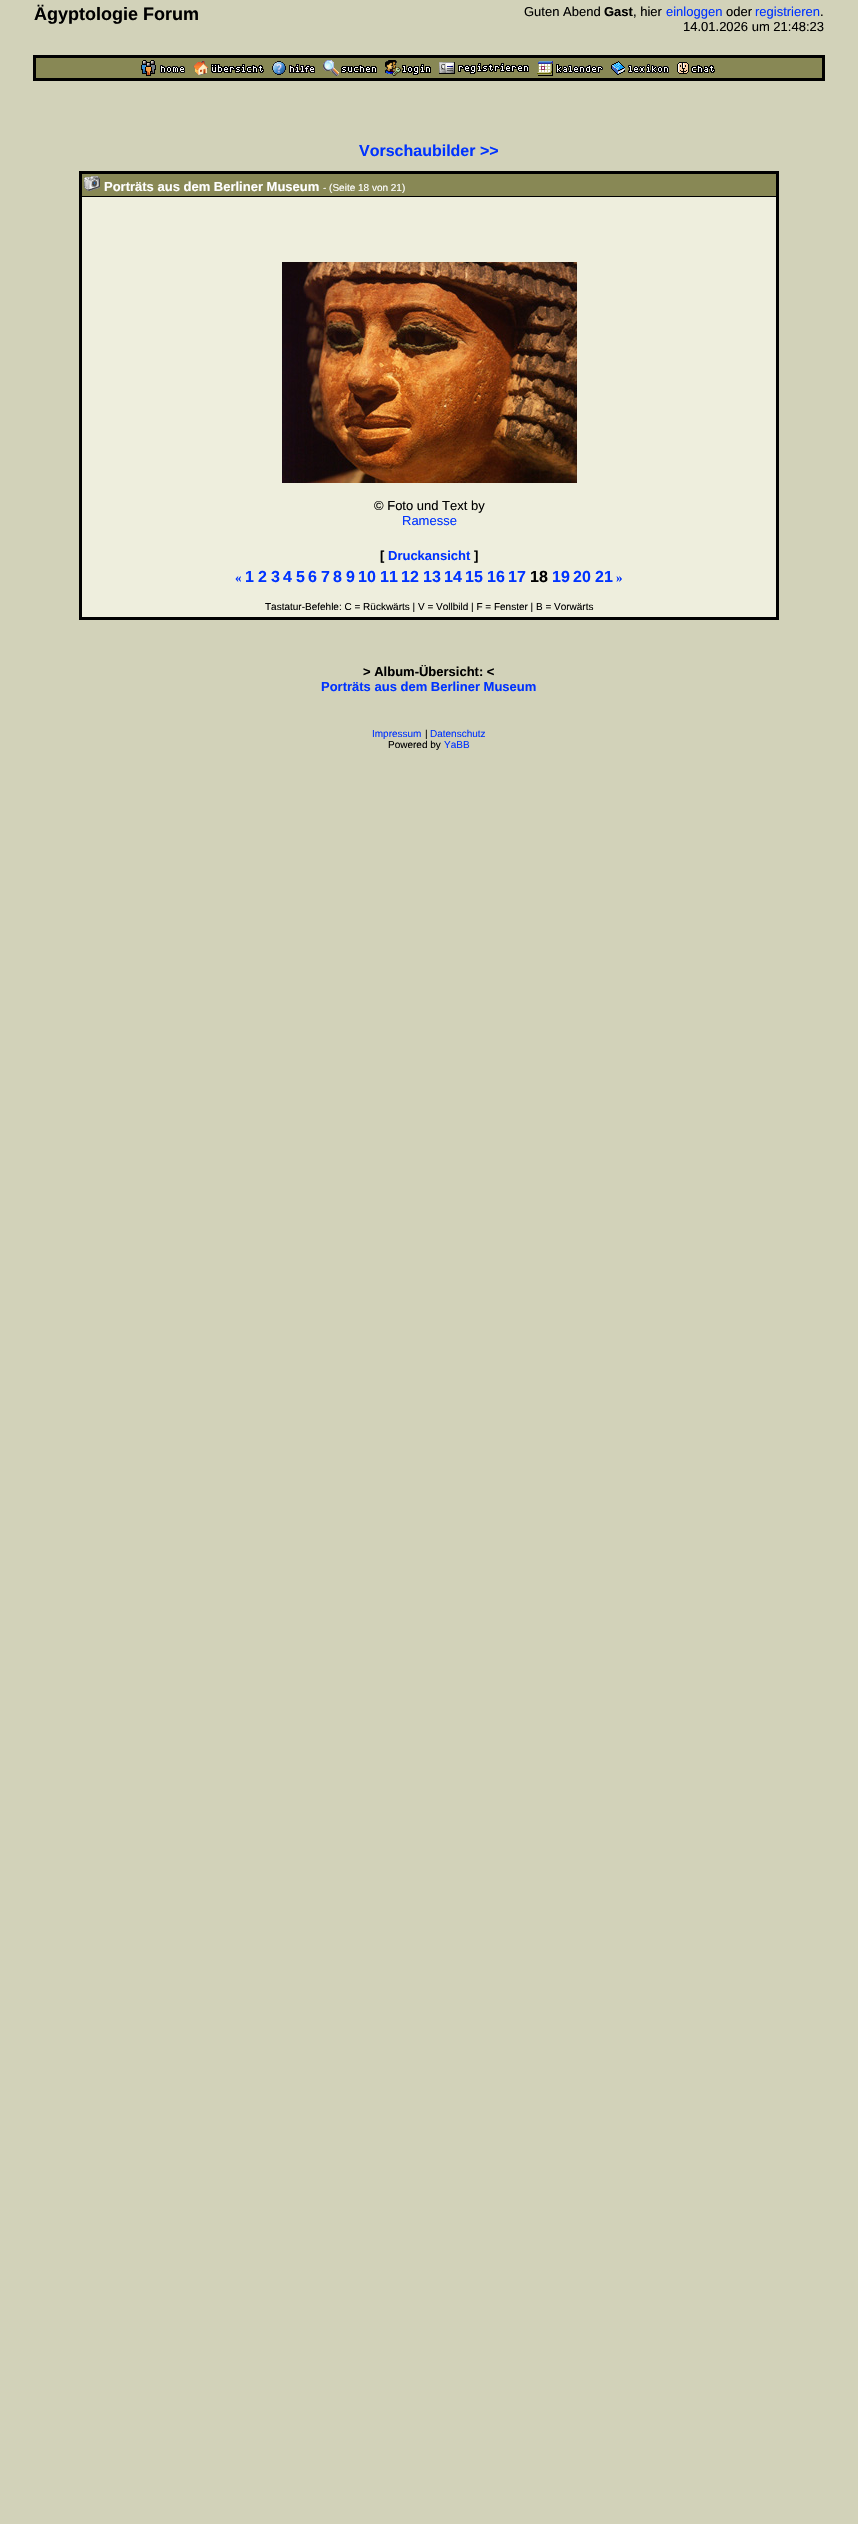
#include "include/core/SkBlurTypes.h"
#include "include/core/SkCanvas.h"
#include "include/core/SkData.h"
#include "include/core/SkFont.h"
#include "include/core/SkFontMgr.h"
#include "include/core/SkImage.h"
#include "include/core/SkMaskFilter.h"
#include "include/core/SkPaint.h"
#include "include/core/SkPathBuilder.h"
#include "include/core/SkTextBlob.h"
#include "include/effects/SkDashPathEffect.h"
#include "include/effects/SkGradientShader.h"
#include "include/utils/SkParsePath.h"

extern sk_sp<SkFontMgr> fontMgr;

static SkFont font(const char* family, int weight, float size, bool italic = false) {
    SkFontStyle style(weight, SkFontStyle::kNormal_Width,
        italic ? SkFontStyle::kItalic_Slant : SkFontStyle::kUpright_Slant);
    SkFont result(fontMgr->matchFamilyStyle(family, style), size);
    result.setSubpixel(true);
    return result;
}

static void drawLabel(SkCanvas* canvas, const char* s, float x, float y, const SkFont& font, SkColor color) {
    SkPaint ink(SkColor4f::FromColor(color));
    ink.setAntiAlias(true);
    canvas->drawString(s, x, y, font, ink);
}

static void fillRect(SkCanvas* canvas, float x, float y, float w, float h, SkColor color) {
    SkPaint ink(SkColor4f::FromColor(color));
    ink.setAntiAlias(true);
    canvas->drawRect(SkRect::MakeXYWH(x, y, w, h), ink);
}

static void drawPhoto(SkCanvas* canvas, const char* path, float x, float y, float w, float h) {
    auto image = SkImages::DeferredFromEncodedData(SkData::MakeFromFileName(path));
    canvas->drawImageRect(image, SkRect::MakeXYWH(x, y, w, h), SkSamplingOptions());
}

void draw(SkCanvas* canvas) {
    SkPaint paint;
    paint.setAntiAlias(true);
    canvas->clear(0xFFD2D2B9);
    SkFont font1 = font("Liberation Sans", 700, 18);
    drawLabel(canvas, "Ägyptologie Forum", 34, 20, font1, 0xFF000000);
    SkFont font2 = font("Liberation Sans", 400, 13);
    drawLabel(canvas, "Guten Abend", 524, 16, font2, 0xFF000000);
    SkFont font3 = font("Liberation Sans", 700, 13);
    drawLabel(canvas, "Gast", 604, 16, font3, 0xFF000000);
    drawLabel(canvas, ", hier", 633, 16, font2, 0xFF000000);
    drawLabel(canvas, "einloggen", 666, 16, font2, 0xFF0033FF);
    drawLabel(canvas, "oder", 726, 16, font2, 0xFF000000);
    drawLabel(canvas, "registrieren", 755, 16, font2, 0xFF0033FF);
    drawLabel(canvas, ".", 820, 16, font2, 0xFF000000);
    drawLabel(canvas, "14.01.2026 um 21:48:23", 683, 31, font2, 0xFF000000);
    fillRect(canvas, 33, 55, 792, 26, 0xFF000000);
    fillRect(canvas, 36, 58, 786, 20, 0xFF888855);
    drawPhoto(canvas, "assets/img1.png", 141, 60, 44, 16);
    drawPhoto(canvas, "assets/img2.png", 193, 61, 71, 14);
    drawPhoto(canvas, "assets/img3.png", 272, 61, 43, 14);
    drawPhoto(canvas, "assets/img4.png", 323, 60, 54, 16);
    drawPhoto(canvas, "assets/img5.png", 385, 60, 46, 16);
    drawPhoto(canvas, "assets/img6.png", 439, 62, 90, 12);
    drawPhoto(canvas, "assets/img7.png", 537, 61, 66, 15);
    drawPhoto(canvas, "assets/img8.png", 611, 61, 58, 14);
    drawPhoto(canvas, "assets/img9.png", 677, 62, 38, 12);
    SkFont font4 = font("Liberation Sans", 700, 16);
    drawLabel(canvas, "Vorschaubilder >>", 359, 156, font4, 0xFF0033FF);
    fillRect(canvas, 79, 171, 700, 449, 0xFF000000);
    fillRect(canvas, 82, 174, 694, 22, 0xFF888855);
    drawPhoto(canvas, "assets/img10.png", 84, 176, 16, 15);
    drawLabel(canvas, "Porträts aus dem Berliner Museum", 104, 191, font3, 0xFFFFFFFF);
    SkFont font5 = font("Liberation Sans", 400, 10);
    drawLabel(canvas, "- (Seite 18 von 21)", 323, 191, font5, 0xFFFFFFFF);
    fillRect(canvas, 82, 197, 694, 420, 0xFFEEEEDD);
    drawPhoto(canvas, "assets/img11.png", 282, 262, 295, 221);
    drawLabel(canvas, "© Foto und Text by", 374, 510, font2, 0xFF000000);
    drawLabel(canvas, "Ramesse", 402, 525, font2, 0xFF0033FF);
    drawLabel(canvas, "[", 380, 560, font3, 0xFF000000);
    drawLabel(canvas, "Druckansicht", 388, 560, font3, 0xFF0033FF);
    drawLabel(canvas, "]", 474, 560, font3, 0xFF000000);
    SkFont font6 = font("Liberation Serif", 700, 13);
    drawLabel(canvas, "«", 235, 582, font6, 0xFF0033FF);
    drawLabel(canvas, "1", 245, 582, font4, 0xFF0033FF);
    drawLabel(canvas, "2", 258, 582, font4, 0xFF0033FF);
    drawLabel(canvas, "3", 271, 582, font4, 0xFF0033FF);
    drawLabel(canvas, "4", 283, 582, font4, 0xFF0033FF);
    drawLabel(canvas, "5", 296, 582, font4, 0xFF0033FF);
    drawLabel(canvas, "6", 308, 582, font4, 0xFF0033FF);
    drawLabel(canvas, "7", 321, 582, font4, 0xFF0033FF);
    drawLabel(canvas, "8", 333, 582, font4, 0xFF0033FF);
    drawLabel(canvas, "9", 346, 582, font4, 0xFF0033FF);
    drawLabel(canvas, "10", 358, 582, font4, 0xFF0033FF);
    drawLabel(canvas, "11", 380, 582, font4, 0xFF0033FF);
    drawLabel(canvas, "12", 401, 582, font4, 0xFF0033FF);
    drawLabel(canvas, "13", 423, 582, font4, 0xFF0033FF);
    drawLabel(canvas, "14", 444, 582, font4, 0xFF0033FF);
    drawLabel(canvas, "15", 465, 582, font4, 0xFF0033FF);
    drawLabel(canvas, "16", 487, 582, font4, 0xFF0033FF);
    drawLabel(canvas, "17", 508, 582, font4, 0xFF0033FF);
    drawLabel(canvas, "18", 530, 582, font4, 0xFF000000);
    drawLabel(canvas, "19", 552, 582, font4, 0xFF0033FF);
    drawLabel(canvas, "20", 573, 582, font4, 0xFF0033FF);
    drawLabel(canvas, "21", 595, 582, font4, 0xFF0033FF);
    drawLabel(canvas, "»", 616, 582, font6, 0xFF0033FF);
    drawLabel(canvas, "Tastatur-Befehle: C = Rückwärts | V = Vollbild | F = Fenster | B = Vorwärts", 265, 610, font5, 0xFF000000);
    drawLabel(canvas, "> Album-Übersicht: <", 363, 676, font3, 0xFF000000);
    drawLabel(canvas, "Porträts aus dem Berliner Museum", 321, 691, font3, 0xFF0033FF);
    drawLabel(canvas, "Impressum", 372, 737, font5, 0xFF0033FF);
    drawLabel(canvas, "|", 425, 737, font5, 0xFF000000);
    drawLabel(canvas, "Datenschutz", 430, 737, font5, 0xFF0033FF);
    drawLabel(canvas, "Powered by", 388, 748, font5, 0xFF000000);
    drawLabel(canvas, "YaBB", 444, 748, font5, 0xFF0033FF);
}
